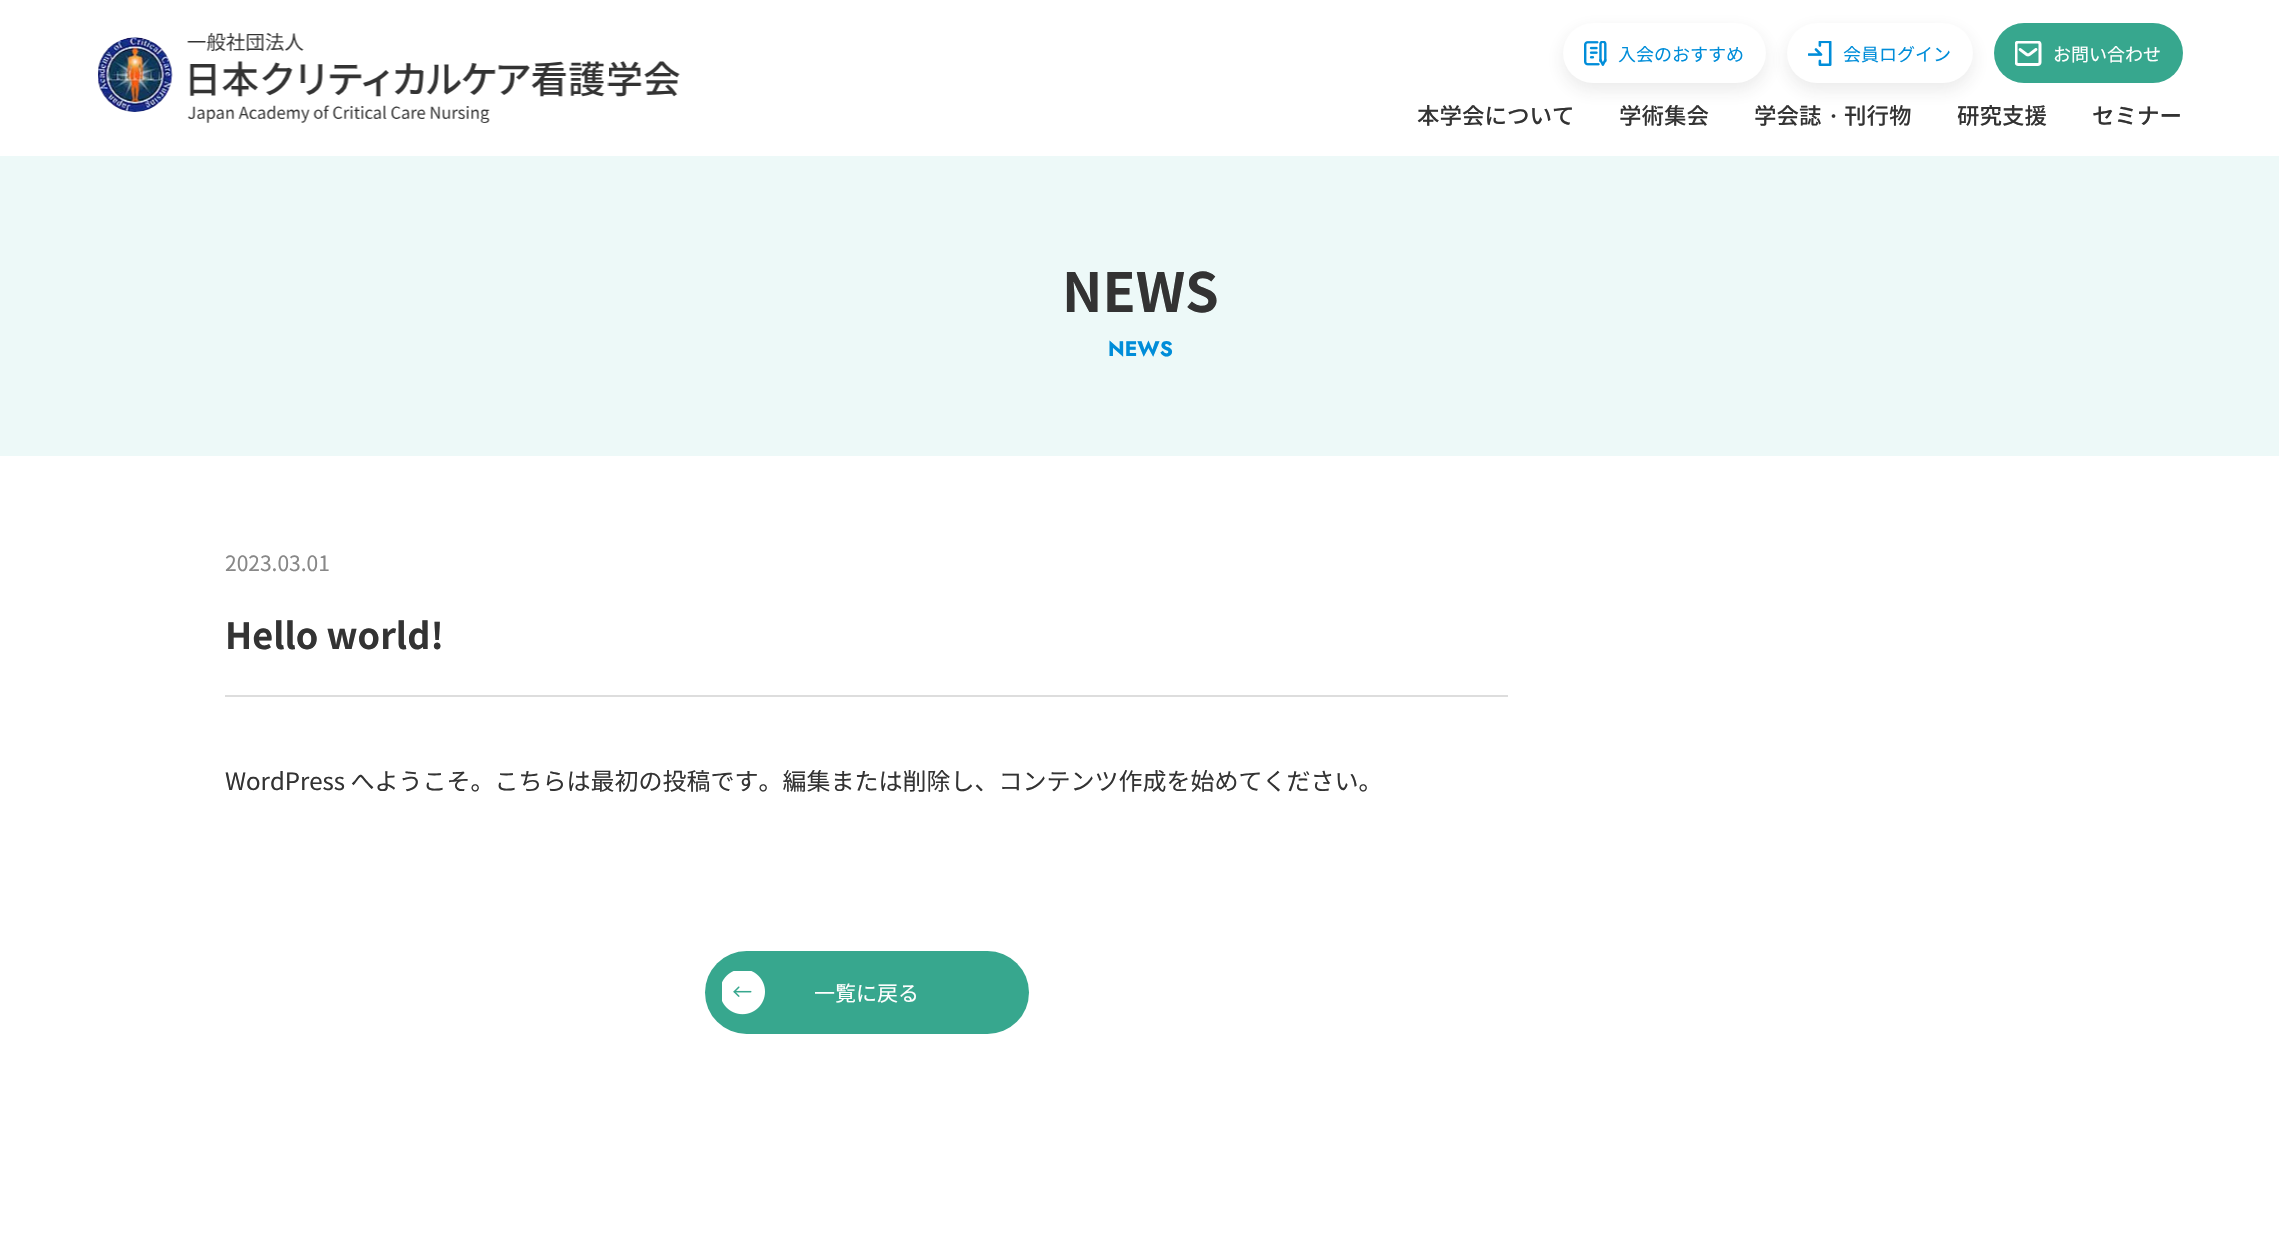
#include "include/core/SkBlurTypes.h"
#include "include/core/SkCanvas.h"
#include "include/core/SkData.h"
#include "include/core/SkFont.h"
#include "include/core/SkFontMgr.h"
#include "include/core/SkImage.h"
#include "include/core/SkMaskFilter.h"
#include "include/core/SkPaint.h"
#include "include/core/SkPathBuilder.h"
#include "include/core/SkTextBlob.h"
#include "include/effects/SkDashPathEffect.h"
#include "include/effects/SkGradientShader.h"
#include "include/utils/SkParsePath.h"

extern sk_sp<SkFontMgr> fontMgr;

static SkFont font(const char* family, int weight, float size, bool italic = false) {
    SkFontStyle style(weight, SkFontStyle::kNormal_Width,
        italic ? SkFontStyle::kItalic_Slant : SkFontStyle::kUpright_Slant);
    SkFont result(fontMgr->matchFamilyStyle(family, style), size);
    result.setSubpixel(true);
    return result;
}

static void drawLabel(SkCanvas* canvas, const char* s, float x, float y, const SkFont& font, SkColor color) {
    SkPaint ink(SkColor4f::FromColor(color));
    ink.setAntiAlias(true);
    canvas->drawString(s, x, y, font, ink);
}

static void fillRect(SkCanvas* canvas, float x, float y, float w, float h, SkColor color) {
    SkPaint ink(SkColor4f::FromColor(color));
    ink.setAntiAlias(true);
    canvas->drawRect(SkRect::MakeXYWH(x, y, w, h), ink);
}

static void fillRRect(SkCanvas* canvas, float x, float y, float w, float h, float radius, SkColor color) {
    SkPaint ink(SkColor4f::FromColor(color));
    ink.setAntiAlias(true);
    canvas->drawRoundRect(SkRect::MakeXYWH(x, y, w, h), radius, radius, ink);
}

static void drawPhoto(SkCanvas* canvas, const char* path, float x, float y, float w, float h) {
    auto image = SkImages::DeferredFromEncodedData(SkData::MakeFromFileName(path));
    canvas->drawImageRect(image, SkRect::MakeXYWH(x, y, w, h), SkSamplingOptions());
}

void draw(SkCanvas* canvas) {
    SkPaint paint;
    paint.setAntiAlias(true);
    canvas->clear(0xFFFFFFFF);
    drawPhoto(canvas, "assets/img1.png", 98, 33, 582, 90);
    paint.setColor(0x1A333333);
    paint.setMaskFilter(SkMaskFilter::MakeBlur(kNormal_SkBlurStyle, 9));
    canvas->drawRoundRect(SkRect::MakeXYWH(1563, 30, 203, 60), 30, 30, paint);
    paint.setMaskFilter(nullptr);
    fillRRect(canvas, 1563, 23, 203, 60, 30, 0xFFFFFFFF);
    drawPhoto(canvas, "assets/img2.png", 1584, 41, 23, 25);
    SkFont font1 = font("Noto Sans JP", 400, 18);
    drawLabel(canvas, "入会のおすすめ", 1618, 61, font1, 0xFF008DD9);
    paint.setMaskFilter(SkMaskFilter::MakeBlur(kNormal_SkBlurStyle, 9));
    canvas->drawRoundRect(SkRect::MakeXYWH(1787, 30, 186, 60), 30, 30, paint);
    paint.setMaskFilter(nullptr);
    fillRRect(canvas, 1787, 23, 186, 60, 30, 0xFFFFFFFF);
    drawPhoto(canvas, "assets/img3.png", 1808, 41, 24, 25);
    drawLabel(canvas, "会員ログイン", 1843, 61, font1, 0xFF008DD9);
    fillRRect(canvas, 1994, 23, 189, 60, 30, 0xFF37A78E);
    drawPhoto(canvas, "assets/img4.png", 2015, 41, 27, 25);
    drawLabel(canvas, "お問い合わせ", 2053, 61, font1, 0xFFFFFFFF);
    SkFont font2 = font("Noto Sans JP", 500, 22.5f);
    drawLabel(canvas, "本学会について", 1417, 124, font2, 0xFF333333);
    drawLabel(canvas, "学術集会", 1619, 124, font2, 0xFF333333);
    drawLabel(canvas, "学会誌", 1754, 124, font2, 0xFF333333);
    SkFont font3 = font("WenQuanYi Zen Hei", 500, 22.5f);
    drawLabel(canvas, "・", 1822, 124, font3, 0xFF333333);
    drawLabel(canvas, "刊行物", 1844, 124, font2, 0xFF333333);
    drawLabel(canvas, "研究支援", 1957, 124, font2, 0xFF333333);
    drawLabel(canvas, "セミナー", 2092, 124, font2, 0xFF333333);
    fillRect(canvas, 0, 156, 2279, 300, 0xFFEDF9F8);
    SkFont font4 = font("Noto Sans JP", 700, 54);
    drawLabel(canvas, "NEWS", 1062, 312, font4, 0xFF333333);
    SkFont font5 = font("Jost", 700, 21);
    drawLabel(canvas, "NEWS", 1108, 356, font5, 0xFF008DD9);
    fillRect(canvas, 225, 695, 1283, 2, 0xFFDDDDDD);
    SkFont font6 = font("Noto Sans JP", 400, 21);
    drawLabel(canvas, "2023.03.01", 225, 571, font6, 0xFF888888);
    SkFont font7 = font("Noto Sans JP", 700, 36);
    drawLabel(canvas, "Hello world!", 225, 649, font7, 0xFF333333);
    SkFont font8 = font("Noto Sans JP", 400, 24);
    drawLabel(canvas, "WordPress へようこそ。こちらは最初の投稿です。編集または削除し、コンテンツ作成を始めてください。", 225, 790, font8, 0xFF333333);
    fillRRect(canvas, 705, 951, 324, 83, 41.5f, 0xFF37A78E);
    drawPhoto(canvas, "assets/img5.png", 722, 971, 43, 44);
    drawLabel(canvas, "一覧に戻る", 814, 1001, font6, 0xFFFFFFFF);
}
